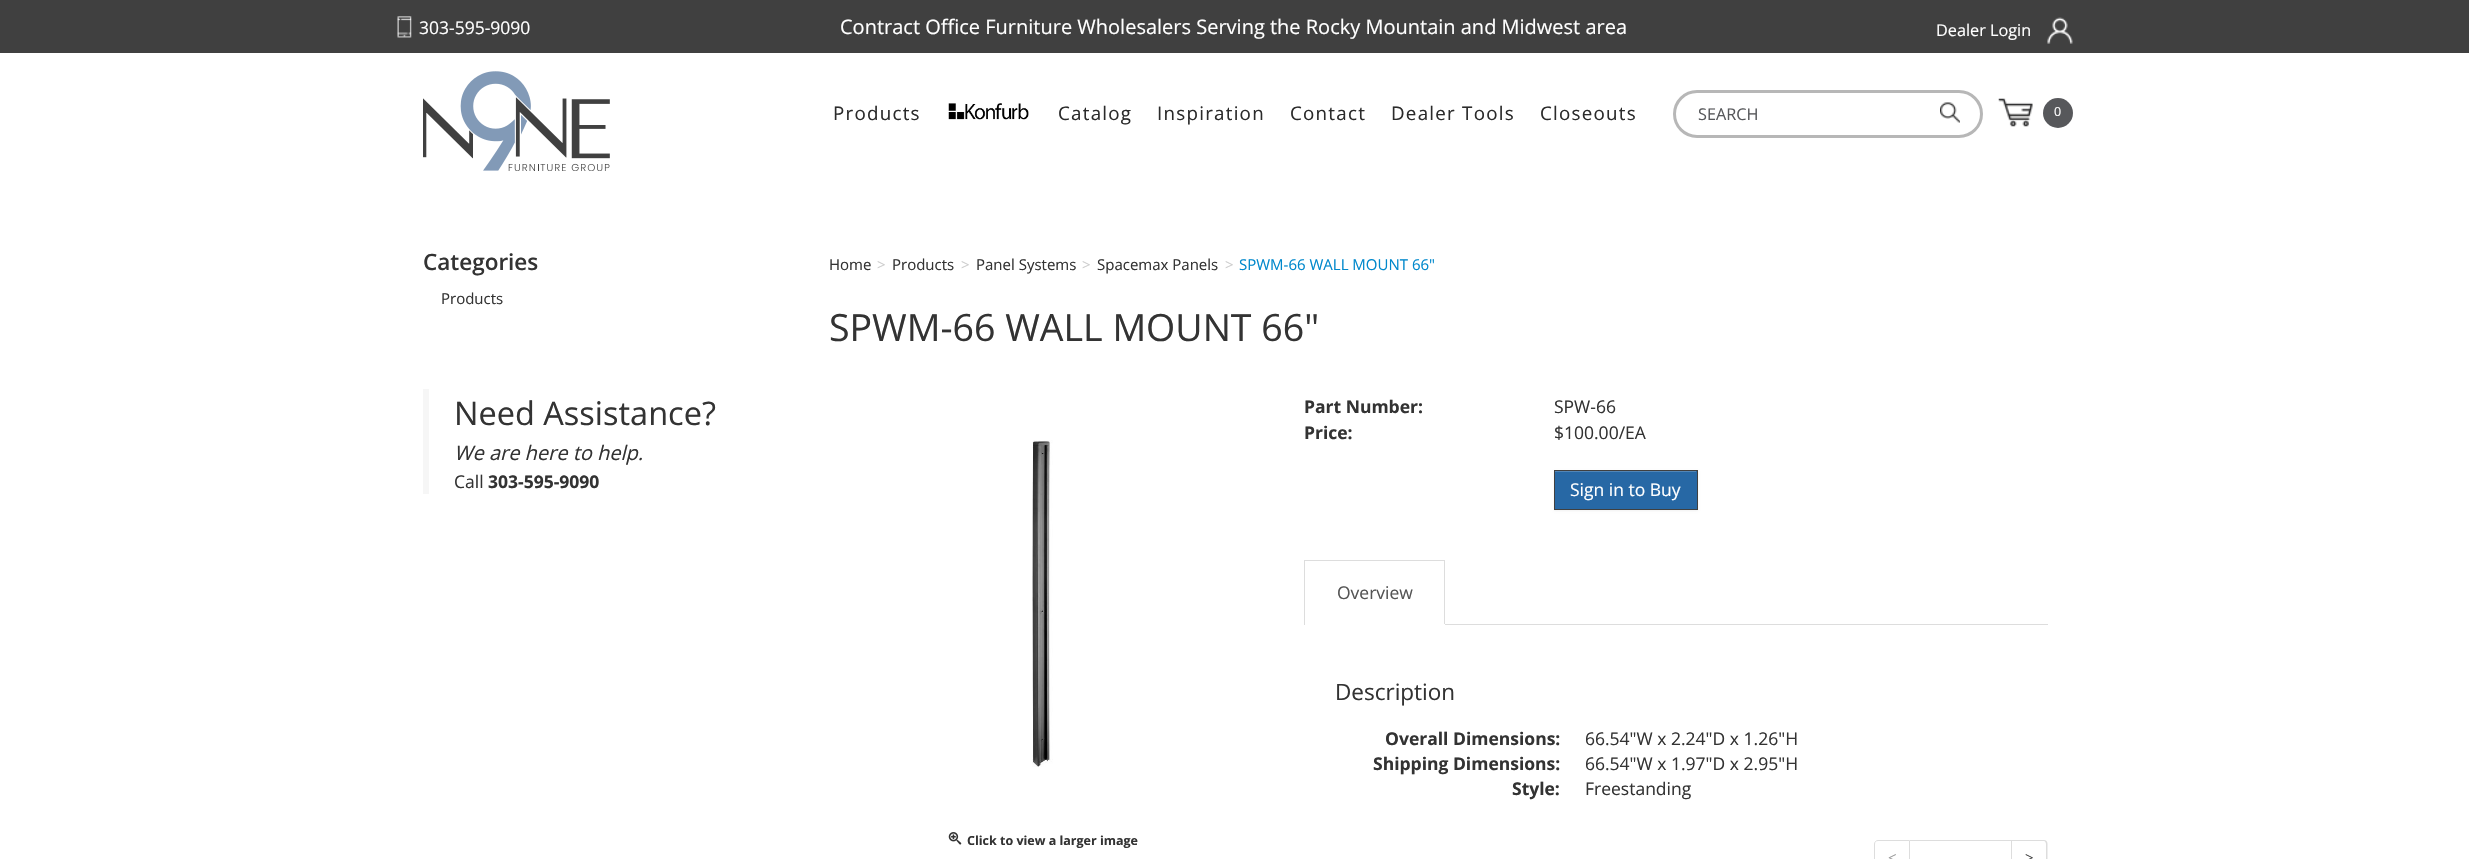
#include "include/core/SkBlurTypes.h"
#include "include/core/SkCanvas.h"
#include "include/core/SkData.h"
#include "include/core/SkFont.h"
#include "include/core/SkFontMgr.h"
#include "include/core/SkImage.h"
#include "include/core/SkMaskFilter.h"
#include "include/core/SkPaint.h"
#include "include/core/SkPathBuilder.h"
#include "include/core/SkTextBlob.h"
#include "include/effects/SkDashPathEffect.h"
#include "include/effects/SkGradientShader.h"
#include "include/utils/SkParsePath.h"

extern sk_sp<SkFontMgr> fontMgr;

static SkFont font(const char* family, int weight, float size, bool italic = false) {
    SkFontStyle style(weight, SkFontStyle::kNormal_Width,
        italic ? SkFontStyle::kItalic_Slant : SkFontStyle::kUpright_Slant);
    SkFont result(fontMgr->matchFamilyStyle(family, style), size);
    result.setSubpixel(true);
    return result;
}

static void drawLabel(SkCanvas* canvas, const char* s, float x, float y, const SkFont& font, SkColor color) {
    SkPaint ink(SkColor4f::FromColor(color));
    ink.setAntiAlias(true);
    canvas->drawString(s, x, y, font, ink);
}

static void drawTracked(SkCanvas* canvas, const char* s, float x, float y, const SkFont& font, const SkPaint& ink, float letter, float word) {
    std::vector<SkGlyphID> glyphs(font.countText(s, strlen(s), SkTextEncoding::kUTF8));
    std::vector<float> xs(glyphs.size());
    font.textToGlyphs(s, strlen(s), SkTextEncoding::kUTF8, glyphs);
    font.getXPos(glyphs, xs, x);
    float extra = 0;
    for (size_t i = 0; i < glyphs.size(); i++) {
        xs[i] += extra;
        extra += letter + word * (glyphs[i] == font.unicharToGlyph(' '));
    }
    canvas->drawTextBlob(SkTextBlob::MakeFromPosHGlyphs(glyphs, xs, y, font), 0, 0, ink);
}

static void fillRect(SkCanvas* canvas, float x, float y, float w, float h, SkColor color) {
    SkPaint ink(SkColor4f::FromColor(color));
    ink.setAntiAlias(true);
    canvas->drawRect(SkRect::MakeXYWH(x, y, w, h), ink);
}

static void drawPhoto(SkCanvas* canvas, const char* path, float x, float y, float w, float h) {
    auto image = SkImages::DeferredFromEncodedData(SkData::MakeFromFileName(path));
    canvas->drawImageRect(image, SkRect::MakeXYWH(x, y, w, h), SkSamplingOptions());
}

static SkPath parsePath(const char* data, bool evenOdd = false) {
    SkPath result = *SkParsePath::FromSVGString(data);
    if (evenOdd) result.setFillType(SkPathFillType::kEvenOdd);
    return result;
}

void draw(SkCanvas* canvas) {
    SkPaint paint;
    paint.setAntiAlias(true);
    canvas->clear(0xFFFFFFFF);
    fillRect(canvas, 0, 0, 2469, 53, 0xFF404040);
    drawPhoto(canvas, "assets/img1.png", 397, 16, 15, 22);
    SkFont font1 = font("Open Sans", 400, 17.5f);
    drawLabel(canvas, "303-595-9090", 419, 34, font1, 0xFFFFFFFF);
    SkFont font2 = font("Open Sans", 400, 20);
    drawLabel(canvas, "Contract Office Furniture Wholesalers Serving the Rocky Mountain and Midwest area", 840, 34, font2, 0xFFFFFFFF);
    SkFont font3 = font("Open Sans", 400, 16.25f);
    drawLabel(canvas, "Dealer Login", 1936, 36, font3, 0xFFFFFFFF);
    drawPhoto(canvas, "assets/img2.png", 2047, 17, 26, 27);
    drawPhoto(canvas, "assets/img3.png", 423, 71, 187, 100);
    SkFont font4 = font("Open Sans", 400, 18.75f);
    paint.setColor(0xFF2B2B2B);
    drawTracked(canvas, "Products", 833, 120, font4, paint, 1.25f, 0);
    drawPhoto(canvas, "assets/img4.png", 948, 103, 81, 17);
    drawTracked(canvas, "Catalog", 1058, 120, font4, paint, 1.25f, 0);
    drawTracked(canvas, "Inspiration", 1157, 120, font4, paint, 1.25f, 0);
    drawTracked(canvas, "Contact", 1290, 120, font4, paint, 1.25f, 0);
    drawTracked(canvas, "Dealer Tools", 1391, 120, font4, paint, 1.25f, 0);
    drawTracked(canvas, "Closeouts", 1540, 120, font4, paint, 1.25f, 0);
    drawPhoto(canvas, "assets/img5.png", 1998, 98, 35, 29);
    paint.setColor(0xFF57585B);
    canvas->drawCircle(2058, 113, 15, paint);
    SkFont font5 = font("Open Sans", 400, 12.5f);
    drawLabel(canvas, "0", 2054, 116, font5, 0xFFFFFFFF);
    paint.setStroke(true);
    paint.setStrokeWidth(3);
    paint.setColor(0xFFB7B7B7);
    canvas->drawRoundRect(SkRect::MakeXYWH(1674.5f, 91.5f, 307, 45), 22.5f, 22.5f, paint);
    drawLabel(canvas, "SEARCH", 1698, 120, font3, 0xFF57585B);
    drawPhoto(canvas, "assets/img6.png", 1940, 102, 20, 21);
    SkFont font6 = font("Open Sans", 600, 22.5f);
    drawLabel(canvas, "Categories", 423, 270, font6, 0xFF333333);
    SkFont font7 = font("Open Sans", 400, 15);
    drawLabel(canvas, "Products", 441, 304, font7, 0xFF333333);
    fillRect(canvas, 423, 389, 6, 105, 0xFFF6F6F6);
    SkFont font8 = font("Open Sans", 400, 32.5f);
    drawLabel(canvas, "Need Assistance?", 454, 425, font8, 0xFF333333);
    SkFont font9 = font("Open Sans", 400, 20, true);
    drawLabel(canvas, "We are here to help.", 454, 460, font9, 0xFF333333);
    drawLabel(canvas, "Call", 454, 488, font1, 0xFF333333);
    SkFont font10 = font("Open Sans", 700, 17.5f);
    drawLabel(canvas, "303-595-9090", 488, 488, font10, 0xFF333333);
    drawLabel(canvas, "Home", 829, 270, font7, 0xFF333333);
    drawLabel(canvas, ">", 877, 270, font7, 0xFFCCCCCC);
    drawLabel(canvas, "Products", 892, 270, font7, 0xFF333333);
    drawLabel(canvas, ">", 961, 270, font7, 0xFFCCCCCC);
    drawLabel(canvas, "Panel Systems", 976, 270, font7, 0xFF333333);
    drawLabel(canvas, ">", 1082, 270, font7, 0xFFCCCCCC);
    drawLabel(canvas, "Spacemax Panels", 1097, 270, font7, 0xFF333333);
    drawLabel(canvas, ">", 1225, 270, font7, 0xFFCCCCCC);
    drawLabel(canvas, "SPWM-66 WALL MOUNT 66\"", 1239, 270, font7, 0xFF0088CC);
    SkFont font11 = font("Open Sans", 400, 37.5f);
    drawLabel(canvas, "SPWM-66 WALL MOUNT 66\"", 829, 341, font11, 0xFF333333);
    drawLabel(canvas, "Part Number:", 1304, 413, font10, 0xFF333333);
    drawLabel(canvas, "SPW-66", 1554, 413, font1, 0xFF333333);
    drawLabel(canvas, "Price:", 1304, 439, font10, 0xFF333333);
    drawLabel(canvas, "$100.00/EA", 1554, 439, font1, 0xFF333333);
    paint.setStroke(false);
    paint.setColor(0x0D000000);
    paint.setMaskFilter(SkMaskFilter::MakeBlur(kNormal_SkBlurStyle, 1));
    canvas->drawRect(SkRect::MakeXYWH(1554, 471, 144, 40), paint);
    paint.setMaskFilter(nullptr);
    fillRect(canvas, 1555, 471, 142, 38, 0xFF2768A5);
    fillRect(canvas, 1555, 471, 141, 1, 0xFF5286B7);
    paint.setStroke(true);
    paint.setStrokeWidth(1);
    paint.setColor(0xFF404040);
    canvas->drawRect(SkRect::MakeXYWH(1554.5f, 470.5f, 143, 39), paint);
    drawLabel(canvas, "Sign in to Buy", 1570, 496, font1, 0xFFFFFFFF);
    fillRect(canvas, 1445, 624, 603, 1, 0xFFDDDDDD);
    fillRect(canvas, 1304, 560, 141, 1, 0xFFDDDDDD);
    fillRect(canvas, 1444, 560, 1, 65, 0xFFDDDDDD);
    fillRect(canvas, 1444, 624, 1, 1, 0xFFFFFFFF);
    fillRect(canvas, 1304, 560, 1, 65, 0xFFDDDDDD);
    drawLabel(canvas, "Overview", 1337, 599, font1, 0xFF555555);
    SkFont font12 = font("Open Sans", 400, 22.5f);
    drawLabel(canvas, "Description", 1335, 700, font12, 0xFF333333);
    drawLabel(canvas, "Overall Dimensions:", 1385, 745, font10, 0xFF333333);
    drawLabel(canvas, "66.54\"W x 2.24\"D x 1.26\"H", 1585, 745, font1, 0xFF333333);
    drawLabel(canvas, "Shipping Dimensions:", 1373, 770, font10, 0xFF333333);
    drawLabel(canvas, "66.54\"W x 1.97\"D x 2.95\"H", 1585, 770, font1, 0xFF333333);
    drawLabel(canvas, "Style:", 1512, 795, font10, 0xFF333333);
    drawLabel(canvas, "Freestanding", 1585, 795, font1, 0xFF333333);
    drawPhoto(canvas, "assets/img7.png", 1032, 440, 21, 327);
    drawPhoto(canvas, "assets/img8.png", 948, 832, 14, 13);
    SkFont font13 = font("Open Sans", 700, 12.5f);
    drawLabel(canvas, "Click to view a larger image", 967, 845, font13, 0xFF333333);
    paint.setColor(0xFFDDDDDD);
    canvas->drawPath(parsePath("M1878 840.5H1909.5V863.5H1878C1876 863.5 1874.5 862 1874.5 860V844C1874.5 842 1876 840.5 1878 840.5Z"), paint);
    drawLabel(canvas, "<", 1888, 863, font7, 0xFF999999);
    fillRect(canvas, 1910, 840, 103, 1, 0xFFDDDDDD);
    fillRect(canvas, 2011, 840, 1, 19, 0xFFDDDDDD);
    paint.setStroke(false);
    canvas->drawPath(parsePath("M2012.5 840H2044C2046 840 2047.5 841.5 2047.5 844V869C2047.5 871 2046 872.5 2044 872.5H2012.5ZM2012.5 841H2044C2045 841 2046 842.5 2046 844V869C2046 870 2045 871 2044 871H2012.5Z", true), paint);
    drawLabel(canvas, ">", 2025, 863, font7, 0xFF404040);
}
